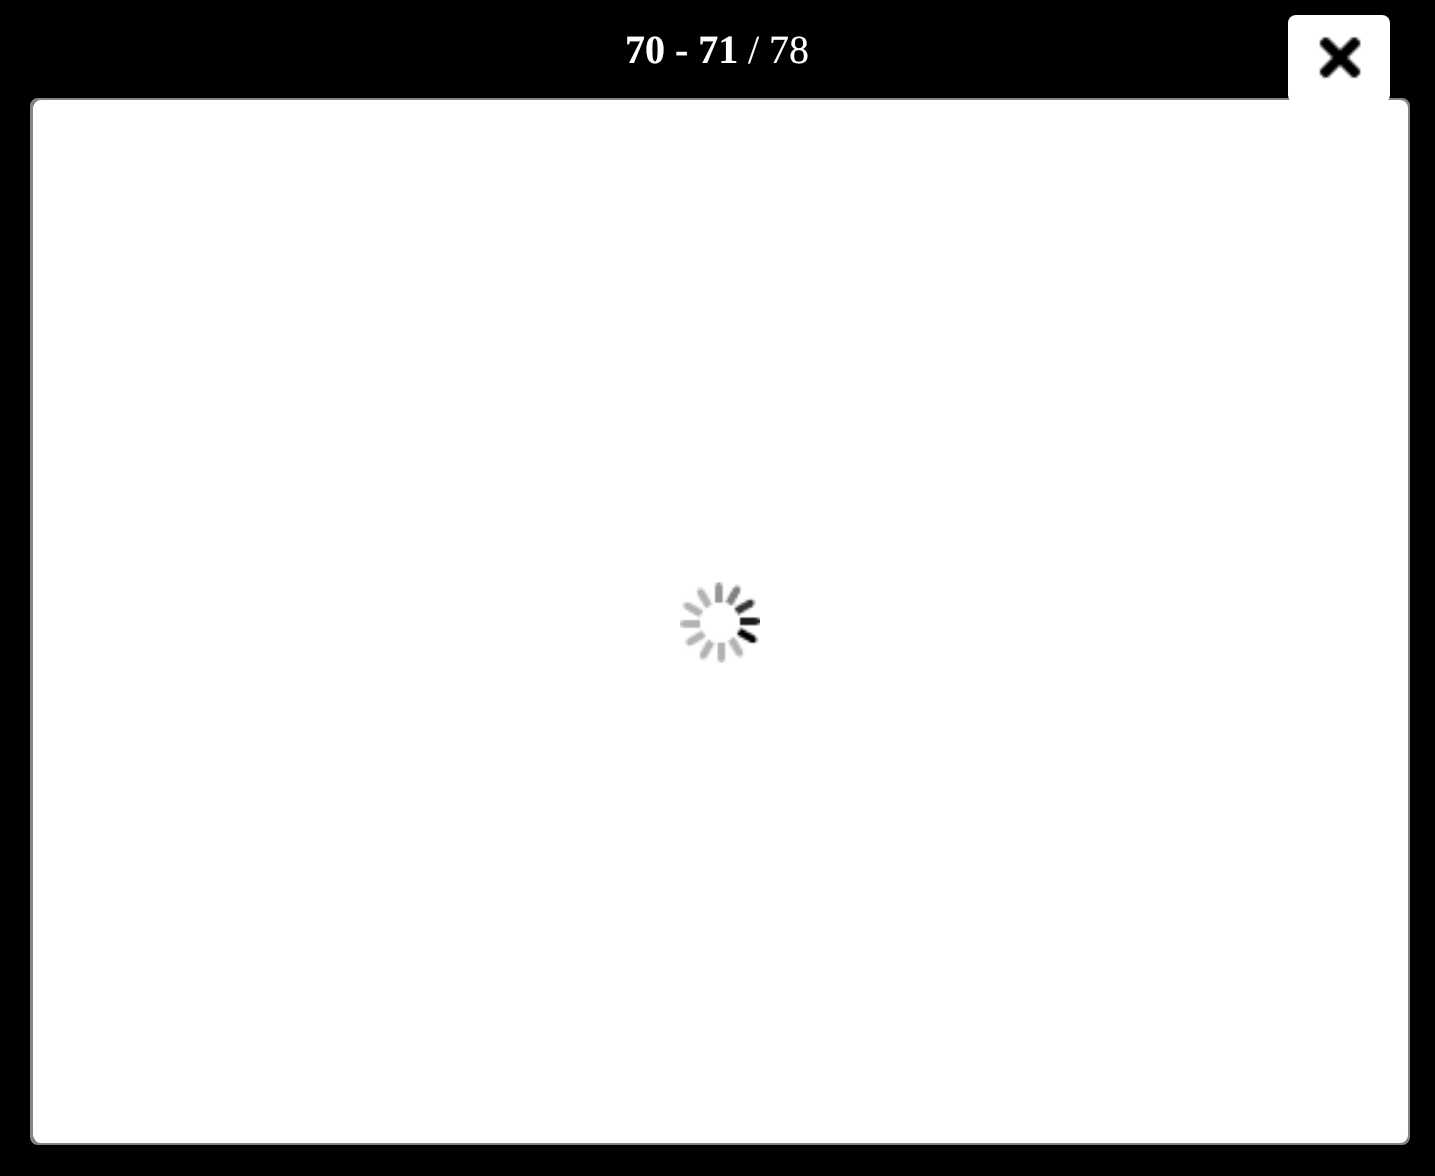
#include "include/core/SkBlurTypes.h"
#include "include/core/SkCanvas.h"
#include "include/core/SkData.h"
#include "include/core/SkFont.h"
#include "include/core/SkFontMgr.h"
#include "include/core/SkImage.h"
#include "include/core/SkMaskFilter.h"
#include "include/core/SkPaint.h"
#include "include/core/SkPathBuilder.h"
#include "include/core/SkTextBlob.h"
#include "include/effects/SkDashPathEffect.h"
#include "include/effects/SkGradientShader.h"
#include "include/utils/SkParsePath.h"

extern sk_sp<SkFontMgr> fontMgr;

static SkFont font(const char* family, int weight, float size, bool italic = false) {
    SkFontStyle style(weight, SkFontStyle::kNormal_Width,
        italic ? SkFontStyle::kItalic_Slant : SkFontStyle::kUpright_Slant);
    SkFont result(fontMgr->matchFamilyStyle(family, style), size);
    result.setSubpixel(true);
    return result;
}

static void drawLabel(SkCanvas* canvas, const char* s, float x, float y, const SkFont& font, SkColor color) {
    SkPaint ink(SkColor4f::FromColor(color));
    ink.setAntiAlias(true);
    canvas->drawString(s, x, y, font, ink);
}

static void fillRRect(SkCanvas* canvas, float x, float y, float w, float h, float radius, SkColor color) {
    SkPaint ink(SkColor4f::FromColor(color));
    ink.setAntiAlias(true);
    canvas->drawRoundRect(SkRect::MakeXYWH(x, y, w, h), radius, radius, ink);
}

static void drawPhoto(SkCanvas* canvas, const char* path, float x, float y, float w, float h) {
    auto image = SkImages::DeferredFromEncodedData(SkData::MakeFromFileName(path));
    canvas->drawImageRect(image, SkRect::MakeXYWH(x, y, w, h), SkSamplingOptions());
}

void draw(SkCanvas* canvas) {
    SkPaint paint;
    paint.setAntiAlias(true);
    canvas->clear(0xFF000000);
    fillRRect(canvas, 30, 98, 1380, 1047, 8, 0xFF333333);
    paint.setStroke(true);
    paint.setStrokeWidth(3);
    paint.setColor(0x66FFFFFF);
    canvas->drawRoundRect(SkRect::MakeXYWH(31.5f, 99.5f, 1377, 1044), 6.5f, 6.5f, paint);
    fillRRect(canvas, 33, 100, 1375, 1043, 8, 0xFFFFFFFF);
    fillRRect(canvas, 1288, 15, 102, 88, 8, 0xFFFFFFFF);
    drawPhoto(canvas, "assets/img1.png", 1319, 36, 42, 43);
    drawPhoto(canvas, "assets/img2.png", 680, 582, 80, 81);
    SkFont font1 = font("Liberation Serif", 700, 40);
    drawLabel(canvas, "70 - 71", 625, 63, font1, 0xFFFFFFFF);
    SkFont font2 = font("Liberation Serif", 400, 40);
    drawLabel(canvas, "/ 78", 748, 63, font2, 0xFFFFFFFF);
}
